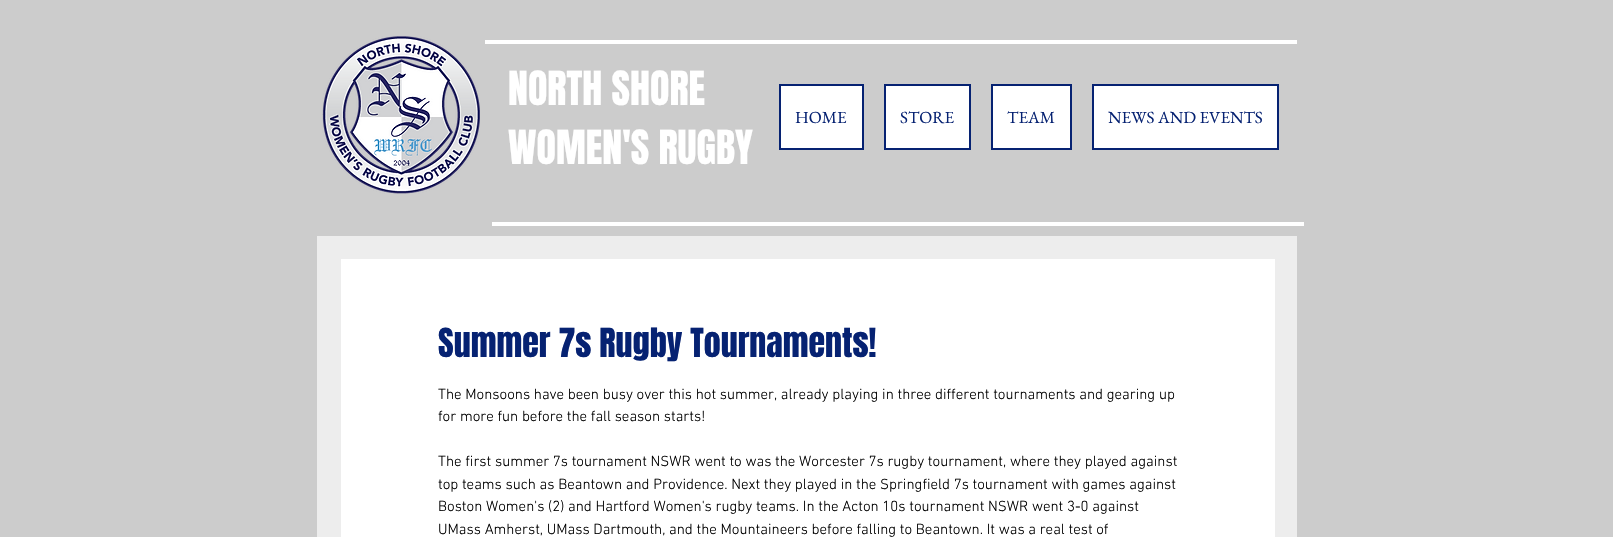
#include "include/core/SkBlurTypes.h"
#include "include/core/SkCanvas.h"
#include "include/core/SkData.h"
#include "include/core/SkFont.h"
#include "include/core/SkFontMgr.h"
#include "include/core/SkImage.h"
#include "include/core/SkMaskFilter.h"
#include "include/core/SkPaint.h"
#include "include/core/SkPathBuilder.h"
#include "include/core/SkTextBlob.h"
#include "include/effects/SkDashPathEffect.h"
#include "include/effects/SkGradientShader.h"
#include "include/utils/SkParsePath.h"

extern sk_sp<SkFontMgr> fontMgr;

static SkFont font(const char* family, int weight, float size, bool italic = false) {
    SkFontStyle style(weight, SkFontStyle::kNormal_Width,
        italic ? SkFontStyle::kItalic_Slant : SkFontStyle::kUpright_Slant);
    SkFont result(fontMgr->matchFamilyStyle(family, style), size);
    result.setSubpixel(true);
    return result;
}

static void drawLabel(SkCanvas* canvas, const char* s, float x, float y, const SkFont& font, SkColor color) {
    SkPaint ink(SkColor4f::FromColor(color));
    ink.setAntiAlias(true);
    canvas->drawString(s, x, y, font, ink);
}

static void fillRect(SkCanvas* canvas, float x, float y, float w, float h, SkColor color) {
    SkPaint ink(SkColor4f::FromColor(color));
    ink.setAntiAlias(true);
    canvas->drawRect(SkRect::MakeXYWH(x, y, w, h), ink);
}

static void drawPhoto(SkCanvas* canvas, const char* path, float x, float y, float w, float h) {
    auto image = SkImages::DeferredFromEncodedData(SkData::MakeFromFileName(path));
    canvas->drawImageRect(image, SkRect::MakeXYWH(x, y, w, h), SkSamplingOptions());
}

void draw(SkCanvas* canvas) {
    SkPaint paint;
    paint.setAntiAlias(true);
    canvas->clear(0xFFCCCCCC);
    drawPhoto(canvas, "assets/img1.png", 322, 36, 158, 158);
    fillRect(canvas, 485, 40, 812, 4, 0xFFFFFFFF);
    SkFont font1 = font("Anton", 400, 40);
    drawLabel(canvas, "NORTH SHORE", 508, 105, font1, 0xFFFFFFFF);
    drawLabel(canvas, "WOMEN'S RUGBY", 508, 164, font1, 0xFFFFFFFF);
    paint.setColor(0xFFFFFFFF);
    canvas->drawRect(SkRect::MakeXYWH(780, 85, 83, 64), paint);
    paint.setStroke(true);
    paint.setStrokeWidth(2);
    paint.setColor(0xFF062272);
    canvas->drawRect(SkRect::MakeXYWH(780, 85, 83, 64), paint);
    SkFont font2 = font("EB Garamond", 400, 17);
    drawLabel(canvas, "HOME", 795, 123, font2, 0xFF062272);
    paint.setStroke(false);
    paint.setColor(0xFFFFFFFF);
    canvas->drawRect(SkRect::MakeXYWH(885, 85, 85, 64), paint);
    paint.setStroke(true);
    paint.setColor(0xFF062272);
    canvas->drawRect(SkRect::MakeXYWH(885, 85, 85, 64), paint);
    drawLabel(canvas, "STORE", 900, 123, font2, 0xFF062272);
    paint.setStroke(false);
    paint.setColor(0xFFFFFFFF);
    canvas->drawRect(SkRect::MakeXYWH(992, 85, 79, 64), paint);
    paint.setStroke(true);
    paint.setColor(0xFF062272);
    canvas->drawRect(SkRect::MakeXYWH(992, 85, 79, 64), paint);
    drawLabel(canvas, "TEAM", 1007, 123, font2, 0xFF062272);
    paint.setStroke(false);
    paint.setColor(0xFFFFFFFF);
    canvas->drawRect(SkRect::MakeXYWH(1093, 85, 185, 64), paint);
    paint.setStroke(true);
    paint.setColor(0xFF062272);
    canvas->drawRect(SkRect::MakeXYWH(1093, 85, 185, 64), paint);
    drawLabel(canvas, "NEWS AND EVENTS", 1108, 123, font2, 0xFF062272);
    fillRect(canvas, 492, 222, 812, 4, 0xFFFFFFFF);
    fillRect(canvas, 317, 236, 980, 301, 0xFFEDEDED);
    fillRect(canvas, 341, 259, 934, 278, 0xFFFFFFFF);
    SkFont font3 = font("Anton", 400, 34);
    drawLabel(canvas, "Summer 7s Rugby Tournaments!", 438, 357, font3, 0xFF062272);
    SkFont font4 = font("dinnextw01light", 300, 15);
    drawLabel(canvas, "The Monsoons have been busy over this hot summer, already playing in three different tournaments and gearing up", 438, 399, font4, 0xFF000000);
    drawLabel(canvas, "for more fun before the fall season starts!", 438, 421, font4, 0xFF000000);
    drawLabel(canvas, "The first summer 7s tournament NSWR went to was the Worcester 7s rugby tournament, where they played against", 438, 466, font4, 0xFF000000);
    drawLabel(canvas, "top teams such as Beantown and Providence. Next they played in the Springfield 7s tournament with games against", 438, 489, font4, 0xFF000000);
    drawLabel(canvas, "Boston Women's (2) and Hartford Women's rugby teams. In the Acton 10s tournament NSWR went 3-0 against", 438, 511, font4, 0xFF000000);
    drawLabel(canvas, "UMass Amherst, UMass Dartmouth, and the Mountaineers before falling to Beantown. It was a real test of", 438, 534, font4, 0xFF000000);
}
